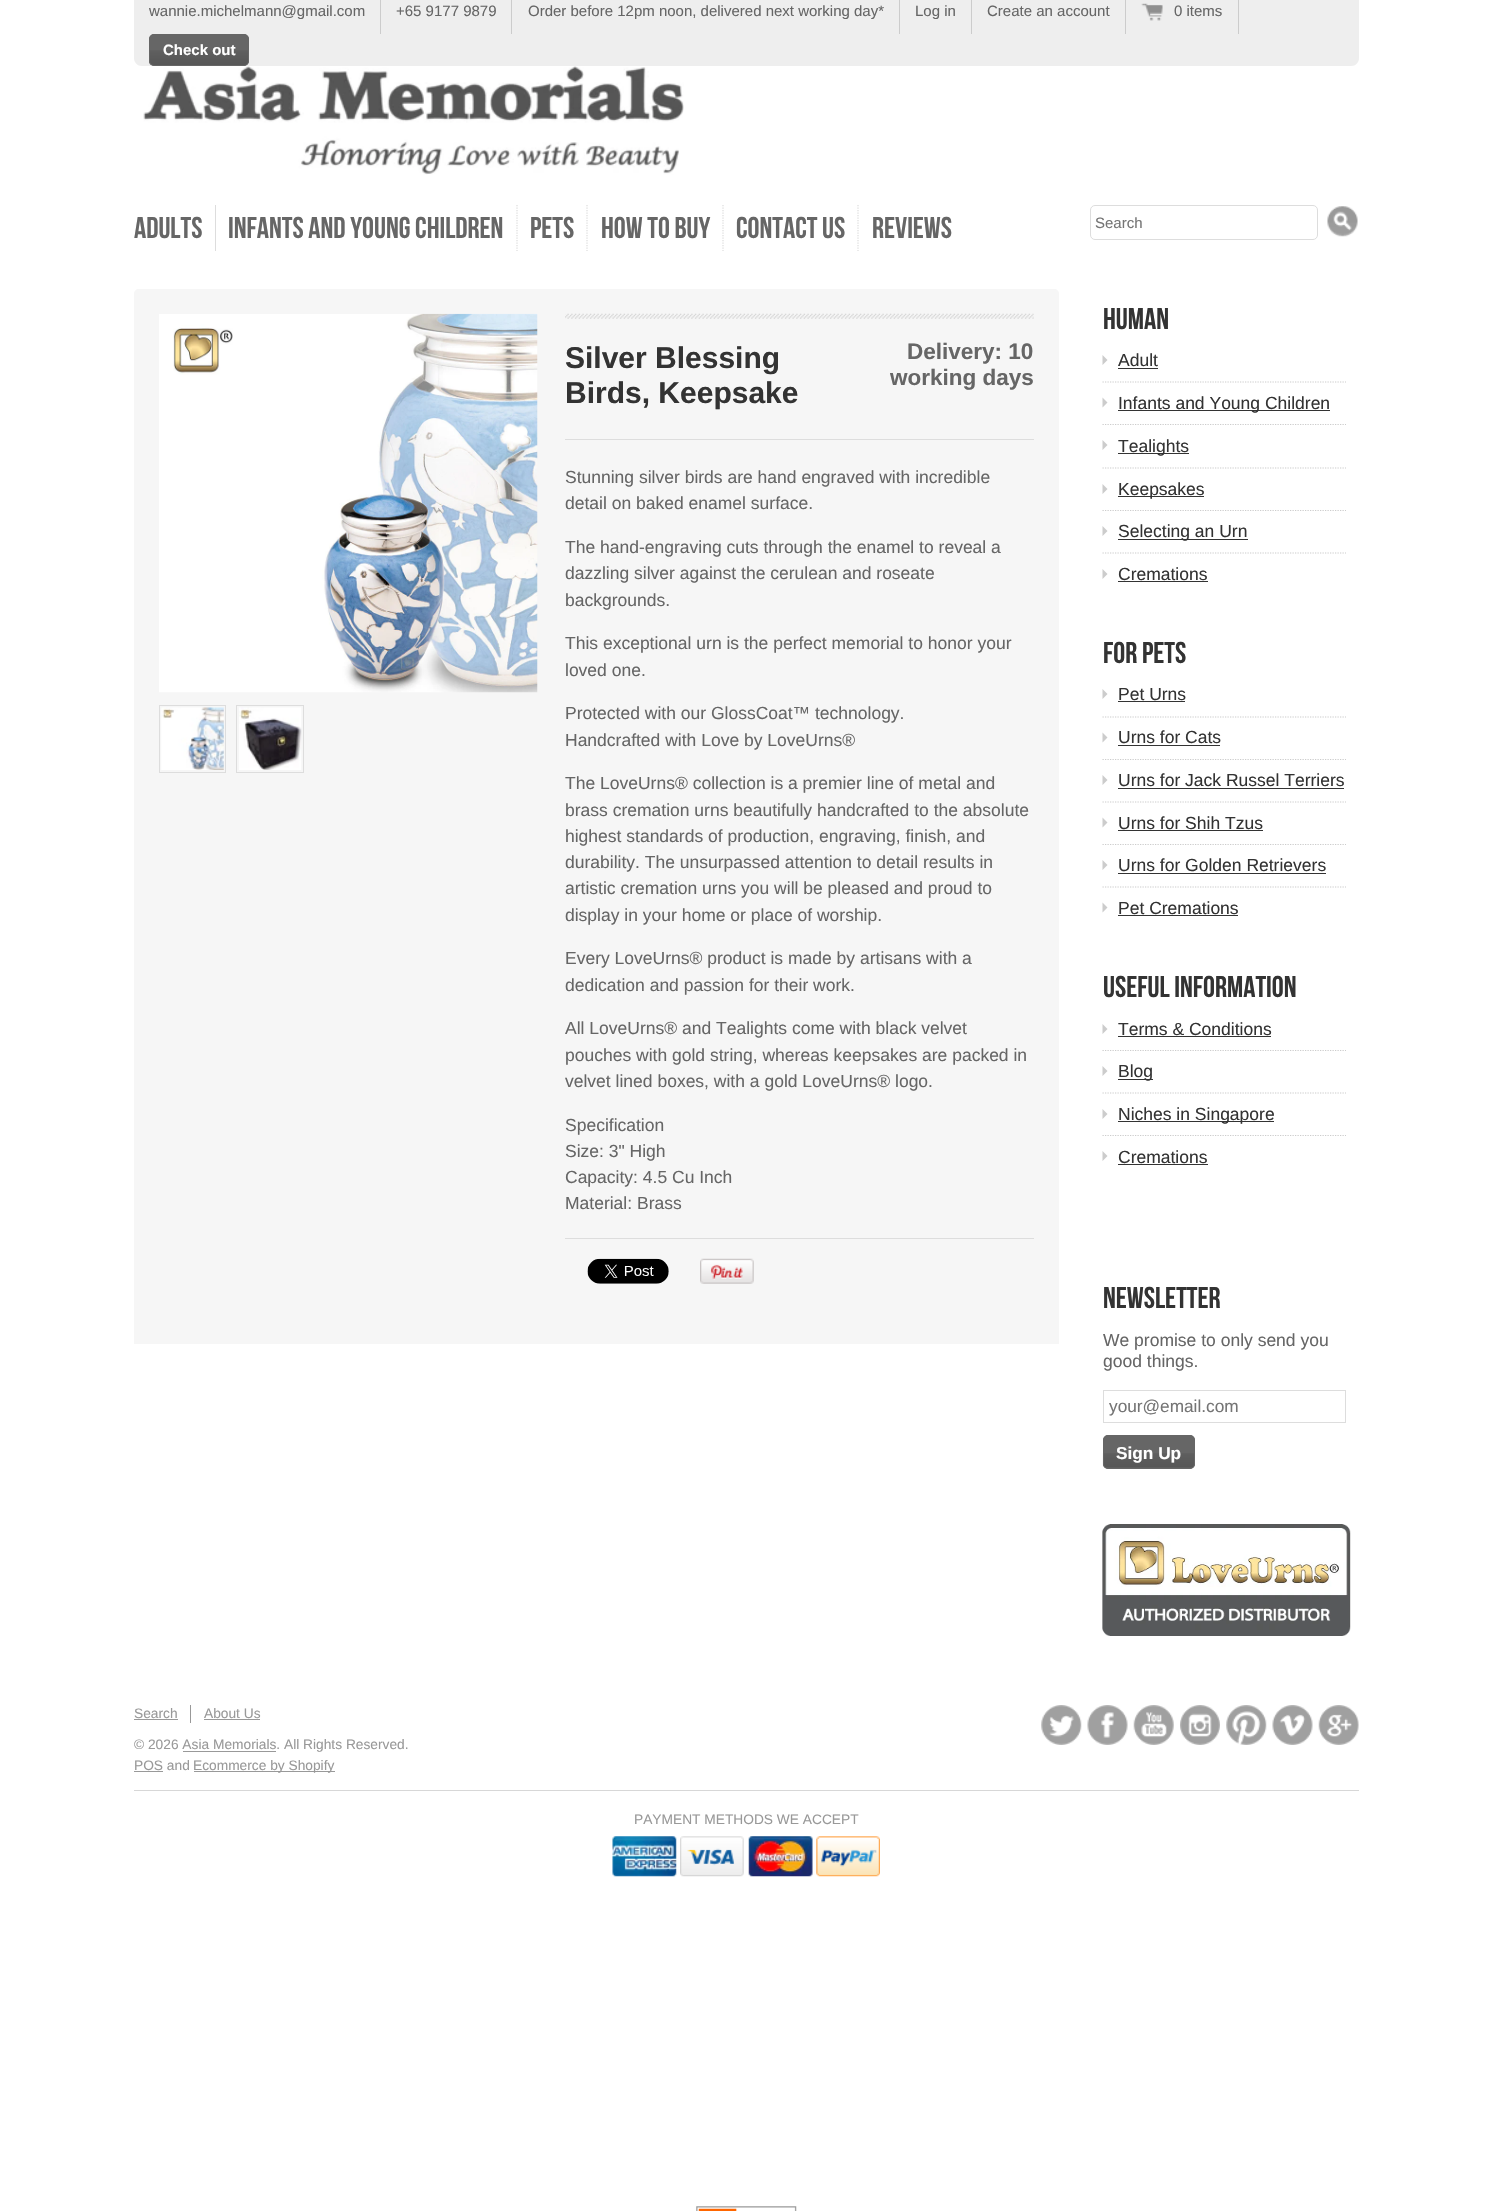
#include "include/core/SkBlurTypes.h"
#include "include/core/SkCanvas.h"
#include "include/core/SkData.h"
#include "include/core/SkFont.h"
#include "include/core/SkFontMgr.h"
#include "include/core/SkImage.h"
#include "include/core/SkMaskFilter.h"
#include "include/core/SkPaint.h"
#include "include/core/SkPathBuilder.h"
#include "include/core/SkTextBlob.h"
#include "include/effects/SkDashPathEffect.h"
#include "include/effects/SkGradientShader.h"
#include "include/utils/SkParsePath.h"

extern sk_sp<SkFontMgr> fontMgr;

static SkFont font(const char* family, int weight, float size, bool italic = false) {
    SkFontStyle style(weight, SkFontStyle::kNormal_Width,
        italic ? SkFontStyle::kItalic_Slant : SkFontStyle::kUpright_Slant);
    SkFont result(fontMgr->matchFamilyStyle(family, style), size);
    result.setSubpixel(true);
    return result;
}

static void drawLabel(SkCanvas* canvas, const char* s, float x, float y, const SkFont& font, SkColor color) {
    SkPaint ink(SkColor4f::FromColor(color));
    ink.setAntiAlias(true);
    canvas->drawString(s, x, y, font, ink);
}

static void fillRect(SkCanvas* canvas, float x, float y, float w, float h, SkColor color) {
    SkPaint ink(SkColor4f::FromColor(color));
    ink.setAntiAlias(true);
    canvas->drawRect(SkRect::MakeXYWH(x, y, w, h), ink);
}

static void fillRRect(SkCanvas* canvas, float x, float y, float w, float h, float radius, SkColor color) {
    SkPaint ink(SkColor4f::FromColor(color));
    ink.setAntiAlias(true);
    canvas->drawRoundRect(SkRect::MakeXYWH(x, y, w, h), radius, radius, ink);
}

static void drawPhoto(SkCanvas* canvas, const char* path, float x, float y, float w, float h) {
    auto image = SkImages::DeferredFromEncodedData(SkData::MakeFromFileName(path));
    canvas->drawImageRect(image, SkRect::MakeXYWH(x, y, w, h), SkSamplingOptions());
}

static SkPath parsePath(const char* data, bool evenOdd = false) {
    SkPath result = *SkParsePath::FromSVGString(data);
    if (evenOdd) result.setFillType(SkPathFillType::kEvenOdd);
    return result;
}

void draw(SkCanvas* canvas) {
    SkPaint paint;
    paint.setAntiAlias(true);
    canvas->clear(0xFFFFFFFF);
    paint.setColor(0xFFEEEEEE);
    canvas->drawPath(parsePath("M134-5H1359V58C1359 62.5 1355.5 66 1351 66H142C137.5 66 134 62.5 134 58Z"), paint);
    fillRect(canvas, 380, 0, 1, 34, 0xFFCCCCCC);
    SkFont font1 = font("Liberation Sans", 400, 15);
    drawLabel(canvas, "wannie.michelmann@gmail.com", 149, 16, font1, 0xFF666666);
    fillRect(canvas, 511, 0, 1, 34, 0xFFCCCCCC);
    drawLabel(canvas, "+65 9177 9879", 396, 16, font1, 0xFF666666);
    fillRect(canvas, 899, 0, 1, 34, 0xFFCCCCCC);
    drawLabel(canvas, "Order before 12pm noon, delivered next working day*", 528, 16, font1, 0xFF666666);
    fillRect(canvas, 971, 0, 1, 34, 0xFFCCCCCC);
    drawLabel(canvas, "Log in", 915, 16, font1, 0xFF666666);
    fillRect(canvas, 1125, 0, 1, 34, 0xFFCCCCCC);
    drawLabel(canvas, "Create an account", 987, 16, font1, 0xFF666666);
    fillRect(canvas, 1238, 0, 1, 34, 0xFFCCCCCC);
    drawPhoto(canvas, "assets/img1.png", 1141, 3, 22, 18);
    drawLabel(canvas, "0 items", 1174, 16, font1, 0xFF666666);
    fillRRect(canvas, 149, 34, 100, 32, 5, 0xFF666666);
    drawPhoto(canvas, "assets/img2.png", 149, 50, 100, 15);
    paint.setStroke(true);
    paint.setStrokeWidth(1);
    paint.setColor(0xFF666666);
    canvas->drawRoundRect(SkRect::MakeXYWH(149.5f, 34.5f, 99, 31), 4.5f, 4.5f, paint);
    SkFont font2 = font("Liberation Sans", 700, 15);
    drawLabel(canvas, "Check out", 163, 55, font2, 0xFFFFFFFF);
    drawPhoto(canvas, "assets/img3.png", 143, 66, 541, 109);
    fillRect(canvas, 215, 205, 1, 46, 0xFFDDDDDD);
    SkFont font3 = font("Bebas Neue", 400, 30);
    drawLabel(canvas, "Adults", 134, 238, font3, 0xFF666666);
    paint.setStrokeWidth(1.2f);
    paint.setColor(0xFFDDDDDD);
    paint.setPathEffect(SkDashPathEffect::Make({{1.25f, 1.25f}}, 0));
    canvas->drawPath(parsePath("M517 205V251"), paint);
    paint.setPathEffect(nullptr);
    drawLabel(canvas, "Infants and Young Children", 228, 238, font3, 0xFF666666);
    paint.setPathEffect(SkDashPathEffect::Make({{1.25f, 1.25f}}, 0));
    canvas->drawPath(parsePath("M587 205V251"), paint);
    paint.setPathEffect(nullptr);
    drawLabel(canvas, "Pets", 530, 238, font3, 0xFF666666);
    paint.setPathEffect(SkDashPathEffect::Make({{1.25f, 1.25f}}, 0));
    canvas->drawPath(parsePath("M723 205V251"), paint);
    paint.setPathEffect(nullptr);
    drawLabel(canvas, "How To Buy", 601, 238, font3, 0xFF666666);
    paint.setPathEffect(SkDashPathEffect::Make({{1.25f, 1.25f}}, 0));
    canvas->drawPath(parsePath("M858 205V251"), paint);
    paint.setPathEffect(nullptr);
    drawLabel(canvas, "Contact Us", 736, 238, font3, 0xFF666666);
    drawLabel(canvas, "Reviews", 872, 238, font3, 0xFF666666);
    paint.setStrokeWidth(1);
    canvas->drawRoundRect(SkRect::MakeXYWH(1090.5f, 205.5f, 227, 34), 4.5f, 4.5f, paint);
    drawLabel(canvas, "Search", 1095, 228, font1, 0xFF757575);
    drawPhoto(canvas, "assets/img4.png", 1327, 206, 31, 31);
    paint.setStroke(false);
    paint.setColor(0xFFF6F6F6);
    canvas->drawPath(parsePath("M139 289H1054C1057 289 1059 291 1059 294V1344H134V294C134 291 136 289 139 289Z"), paint);
    drawPhoto(canvas, "assets/img5.png", 159, 313, 379, 380);
    paint.setStroke(true);
    paint.setColor(0xFFDDDDDD);
    canvas->drawRect(SkRect::MakeXYWH(159.5f, 705.5f, 66, 67), paint);
    drawPhoto(canvas, "assets/img6.png", 161, 707, 63, 63);
    canvas->drawRect(SkRect::MakeXYWH(236.5f, 705.5f, 67, 67), paint);
    drawPhoto(canvas, "assets/img7.png", 239, 707, 63, 63);
    drawPhoto(canvas, "assets/img8.png", 565, 313, 469, 6);
    fillRect(canvas, 565, 439, 469, 1, 0xFFDDDDDD);
    SkFont font4 = font("Liberation Sans", 700, 30);
    drawLabel(canvas, "Silver Blessing", 565, 368, font4, 0xFF333333);
    drawLabel(canvas, "Birds, Keepsake", 565, 403, font4, 0xFF333333);
    SkFont font5 = font("Liberation Sans", 700, 22.5f);
    drawLabel(canvas, "Delivery: 10", 907, 359, font5, 0xFF666666);
    drawLabel(canvas, "working days", 890, 385, font5, 0xFF666666);
    SkFont font6 = font("Liberation Sans", 400, 17.5f);
    drawLabel(canvas, "Stunning silver birds are hand engraved with incredible", 565, 483, font6, 0xFF666666);
    drawLabel(canvas, "detail on baked enamel surface.", 565, 509, font6, 0xFF666666);
    drawLabel(canvas, "The hand-engraving cuts through the enamel to reveal a", 565, 553, font6, 0xFF666666);
    drawLabel(canvas, "dazzling silver against the cerulean and roseate", 565, 579, font6, 0xFF666666);
    drawLabel(canvas, "backgrounds.", 565, 606, font6, 0xFF666666);
    drawLabel(canvas, "This exceptional urn is the perfect memorial to honor your", 565, 649, font6, 0xFF666666);
    drawLabel(canvas, "loved one.", 565, 676, font6, 0xFF666666);
    drawLabel(canvas, "Protected with our GlossCoat™ technology.", 565, 719, font6, 0xFF666666);
    drawLabel(canvas, "Handcrafted with Love by LoveUrns®", 565, 746, font6, 0xFF666666);
    drawLabel(canvas, "The LoveUrns® collection is a premier line of metal and", 565, 789, font6, 0xFF666666);
    drawLabel(canvas, "brass cremation urns beautifully handcrafted to the absolute", 565, 816, font6, 0xFF666666);
    drawLabel(canvas, "highest standards of production, engraving, finish, and", 565, 842, font6, 0xFF666666);
    drawLabel(canvas, "durability. The unsurpassed attention to detail results in", 565, 868, font6, 0xFF666666);
    drawLabel(canvas, "artistic cremation urns you will be pleased and proud to", 565, 894, font6, 0xFF666666);
    drawLabel(canvas, "display in your home or place of worship.", 565, 921, font6, 0xFF666666);
    drawLabel(canvas, "Every LoveUrns® product is made by artisans with a", 565, 964, font6, 0xFF666666);
    drawLabel(canvas, "dedication and passion for their work.", 565, 991, font6, 0xFF666666);
    drawLabel(canvas, "All LoveUrns® and Tealights come with black velvet", 565, 1034, font6, 0xFF666666);
    drawLabel(canvas, "pouches with gold string, whereas keepsakes are packed in", 565, 1061, font6, 0xFF666666);
    drawLabel(canvas, "velvet lined boxes, with a gold LoveUrns® logo.", 565, 1087, font6, 0xFF666666);
    drawLabel(canvas, "Specification", 565, 1131, font6, 0xFF666666);
    drawLabel(canvas, "Size: 3\" High", 565, 1157, font6, 0xFF666666);
    drawLabel(canvas, "Capacity: 4.5 Cu Inch", 565, 1183, font6, 0xFF666666);
    drawLabel(canvas, "Material: Brass", 565, 1209, font6, 0xFF666666);
    fillRect(canvas, 565, 1238, 469, 1, 0xFFDDDDDD);
    drawPhoto(canvas, "assets/img9.png", 587, 1258, 82, 26);
    drawPhoto(canvas, "assets/img10.png", 700, 1258, 54, 26);
    drawLabel(canvas, "Human", 1103, 329, font3, 0xFF333333);
    paint.setStrokeWidth(1.2f);
    paint.setColor(0xFFCCCCCC);
    paint.setPathEffect(SkDashPathEffect::Make({{1.25f, 1.25f}}, 0));
    canvas->drawPath(parsePath("M1102.5 382H1346"), paint);
    paint.setPathEffect(nullptr);
    paint.setStroke(false);
    canvas->drawPath(parsePath("M1102.5 365V355L1107.5 360ZM1102.5 407.5V397.5L1107.5 402.5Z"), paint);
    drawLabel(canvas, "Adult", 1118, 366, font6, 0xFF333333);
    fillRect(canvas, 1118, 368, 40, 1, 0xFF333333);
    fillRect(canvas, 1118, 410, 212, 1, 0xFF333333);
    drawLabel(canvas, "Infants and Young Children", 1118, 409, font6, 0xFF333333);
    paint.setStroke(true);
    paint.setPathEffect(SkDashPathEffect::Make({{1.25f, 1.25f}}, 0));
    canvas->drawPath(parsePath("M1102.5 424.5H1346"), paint);
    paint.setPathEffect(nullptr);
    paint.setPathEffect(SkDashPathEffect::Make({{1.25f, 1.25f}}, 0));
    canvas->drawPath(parsePath("M1102.5 468H1346"), paint);
    paint.setPathEffect(nullptr);
    paint.setStroke(false);
    canvas->drawPath(parsePath("M1102.5 450V440L1107.5 445ZM1102.5 494V484L1107.5 489Z"), paint);
    fillRect(canvas, 1118, 453, 71, 1, 0xFF333333);
    drawLabel(canvas, "Tealights", 1118, 452, font6, 0xFF333333);
    fillRect(canvas, 1118, 496, 86, 1, 0xFF333333);
    drawLabel(canvas, "Keepsakes", 1118, 495, font6, 0xFF333333);
    paint.setStroke(true);
    paint.setPathEffect(SkDashPathEffect::Make({{1.25f, 1.25f}}, 0));
    canvas->drawPath(parsePath("M1102.5 510.5H1346"), paint);
    paint.setPathEffect(nullptr);
    paint.setPathEffect(SkDashPathEffect::Make({{1.25f, 1.25f}}, 0));
    canvas->drawPath(parsePath("M1102.5 553H1346"), paint);
    paint.setPathEffect(nullptr);
    paint.setStroke(false);
    canvas->drawPath(parsePath("M1102.5 536V526L1107.5 531ZM1102.5 579V569L1107.5 574Z"), paint);
    fillRect(canvas, 1118, 539, 130, 1, 0xFF333333);
    drawLabel(canvas, "Selecting an Urn", 1118, 537, font6, 0xFF333333);
    drawLabel(canvas, "Cremations", 1118, 580, font6, 0xFF333333);
    fillRect(canvas, 1118, 581, 90, 1, 0xFF333333);
    drawLabel(canvas, "For Pets", 1103, 663, font3, 0xFF333333);
    paint.setStroke(true);
    paint.setPathEffect(SkDashPathEffect::Make({{1.25f, 1.25f}}, 0));
    canvas->drawPath(parsePath("M1102.5 717H1346"), paint);
    paint.setPathEffect(nullptr);
    paint.setStroke(false);
    canvas->drawPath(parsePath("M1102.5 699V689L1107.5 694ZM1102.5 742.5V732.5L1107.5 737.5Z"), paint);
    drawLabel(canvas, "Pet Urns", 1118, 700, font6, 0xFF333333);
    fillRect(canvas, 1118, 701, 67, 1, 0xFF333333);
    drawLabel(canvas, "Urns for Cats", 1118, 743, font6, 0xFF333333);
    fillRect(canvas, 1118, 745, 102, 1, 0xFF333333);
    paint.setStroke(true);
    paint.setPathEffect(SkDashPathEffect::Make({{1.25f, 1.25f}}, 0));
    canvas->drawPath(parsePath("M1102.5 759.5H1346"), paint);
    paint.setPathEffect(nullptr);
    paint.setPathEffect(SkDashPathEffect::Make({{1.25f, 1.25f}}, 0));
    canvas->drawPath(parsePath("M1102.5 802H1346"), paint);
    paint.setPathEffect(nullptr);
    paint.setStroke(false);
    canvas->drawPath(parsePath("M1102.5 785V775L1107.5 780ZM1102.5 827.5V817.5L1107.5 822.5Z"), paint);
    drawLabel(canvas, "Urns for Jack Russel Terriers", 1118, 786, font6, 0xFF333333);
    fillRect(canvas, 1118, 788, 226, 1, 0xFF333333);
    drawLabel(canvas, "Urns for Shih Tzus", 1118, 829, font6, 0xFF333333);
    fillRect(canvas, 1118, 830, 145, 1, 0xFF333333);
    paint.setStroke(true);
    paint.setPathEffect(SkDashPathEffect::Make({{1.25f, 1.25f}}, 0));
    canvas->drawPath(parsePath("M1102.5 844.5H1346"), paint);
    paint.setPathEffect(nullptr);
    paint.setPathEffect(SkDashPathEffect::Make({{1.25f, 1.25f}}, 0));
    canvas->drawPath(parsePath("M1102.5 887H1346"), paint);
    paint.setPathEffect(nullptr);
    paint.setStroke(false);
    canvas->drawPath(parsePath("M1102.5 870V860L1107.5 865ZM1102.5 912.5V902.5L1107.5 907.5Z"), paint);
    drawLabel(canvas, "Urns for Golden Retrievers", 1118, 871, font6, 0xFF333333);
    fillRect(canvas, 1118, 873, 208, 1, 0xFF333333);
    drawLabel(canvas, "Pet Cremations", 1118, 914, font6, 0xFF333333);
    fillRect(canvas, 1118, 915, 120, 1, 0xFF333333);
    drawLabel(canvas, "Useful Information", 1103, 997, font3, 0xFF333333);
    paint.setStroke(true);
    paint.setPathEffect(SkDashPathEffect::Make({{1.25f, 1.25f}}, 0));
    canvas->drawPath(parsePath("M1102.5 1050.5H1346"), paint);
    paint.setPathEffect(nullptr);
    paint.setStroke(false);
    canvas->drawPath(parsePath("M1102.5 1034V1024L1107.5 1029ZM1102.5 1076V1066L1107.5 1071Z"), paint);
    drawLabel(canvas, "Terms & Conditions", 1118, 1035, font6, 0xFF333333);
    fillRect(canvas, 1118, 1036, 153, 1, 0xFF333333);
    fillRect(canvas, 1118, 1079, 35, 1, 0xFF333333);
    drawLabel(canvas, "Blog", 1118, 1077, font6, 0xFF333333);
    paint.setStroke(true);
    paint.setPathEffect(SkDashPathEffect::Make({{1.25f, 1.25f}}, 0));
    canvas->drawPath(parsePath("M1102.5 1093H1346"), paint);
    paint.setPathEffect(nullptr);
    paint.setPathEffect(SkDashPathEffect::Make({{1.25f, 1.25f}}, 0));
    canvas->drawPath(parsePath("M1102.5 1135.5H1346"), paint);
    paint.setPathEffect(nullptr);
    paint.setStroke(false);
    canvas->drawPath(parsePath("M1102.5 1119V1109L1107.5 1114ZM1102.5 1161V1151L1107.5 1156Z"), paint);
    fillRect(canvas, 1118, 1121, 156, 1, 0xFF333333);
    drawLabel(canvas, "Niches in Singapore", 1118, 1120, font6, 0xFF333333);
    drawLabel(canvas, "Cremations", 1118, 1163, font6, 0xFF333333);
    fillRect(canvas, 1118, 1164, 90, 1, 0xFF333333);
    drawLabel(canvas, "Newsletter", 1103, 1308, font3, 0xFF333333);
    drawLabel(canvas, "We promise to only send you", 1103, 1346, font6, 0xFF666666);
    drawLabel(canvas, "good things.", 1103, 1367, font6, 0xFF666666);
    paint.setStroke(true);
    paint.setStrokeWidth(1);
    paint.setColor(0xFFDDDDDD);
    canvas->drawRect(SkRect::MakeXYWH(1103.5f, 1390.5f, 242, 32), paint);
    SkFont font7 = font("Liberation Sans", 400, 17.25f);
    drawLabel(canvas, "your@email.com", 1109, 1412, font7, 0xFF757575);
    fillRRect(canvas, 1103, 1435, 92, 34, 5, 0xFF666666);
    drawPhoto(canvas, "assets/img11.png", 1102, 1453, 93, 15);
    paint.setColor(0xFF666666);
    canvas->drawRoundRect(SkRect::MakeXYWH(1103.5f, 1435.5f, 91, 33), 4.5f, 4.5f, paint);
    SkFont font8 = font("Liberation Sans", 700, 17.25f);
    drawLabel(canvas, "Sign Up", 1116, 1459, font8, 0xFFFFFFFF);
    drawPhoto(canvas, "assets/img12.png", 1102, 1524, 249, 112);
    SkFont font9 = font("Liberation Sans", 400, 13.75f);
    drawLabel(canvas, "Search", 134, 1718, font9, 0xFF999999);
    fillRect(canvas, 134, 1719, 44, 1, 0xFF999999);
    fillRect(canvas, 190, 1705, 1, 18, 0xFF999999);
    drawLabel(canvas, "About Us", 204, 1718, font9, 0xFF999999);
    fillRect(canvas, 204, 1719, 56, 1, 0xFF999999);
    drawLabel(canvas, "© 2026 Asia Memorials. All Rights Reserved.", 134, 1749, font9, 0xFF999999);
    fillRect(canvas, 183, 1751, 93, 1, 0xFF999999);
    drawLabel(canvas, "POS and", 134, 1770, font9, 0xFF999999);
    fillRect(canvas, 134, 1771, 29, 1, 0xFF999999);
    fillRect(canvas, 194, 1771, 141, 1, 0xFF999999);
    drawLabel(canvas, "Ecommerce by Shopify", 193, 1770, font9, 0xFF999999);
    drawPhoto(canvas, "assets/img13.png", 1041, 1705, 41, 40);
    drawPhoto(canvas, "assets/img14.png", 1087, 1705, 41, 40);
    drawPhoto(canvas, "assets/img15.png", 1133, 1705, 41, 40);
    drawPhoto(canvas, "assets/img16.png", 1180, 1705, 40, 40);
    drawPhoto(canvas, "assets/img17.png", 1226, 1705, 41, 40);
    drawPhoto(canvas, "assets/img18.png", 1272, 1705, 41, 40);
    drawPhoto(canvas, "assets/img19.png", 1318, 1705, 41, 40);
    fillRect(canvas, 134, 1790, 1225, 1, 0xFFD7D7D7);
    drawLabel(canvas, "PAYMENT METHODS WE ACCEPT", 634, 1824, font9, 0xFF999999);
    drawPhoto(canvas, "assets/img20.png", 612, 1836, 65, 41);
    drawPhoto(canvas, "assets/img21.png", 680, 1836, 64, 41);
    drawPhoto(canvas, "assets/img22.png", 748, 1836, 65, 41);
    drawPhoto(canvas, "assets/img23.png", 816, 1836, 64, 41);
    drawPhoto(canvas, "assets/img24.png", 696, 2206, 101, 5);
}
